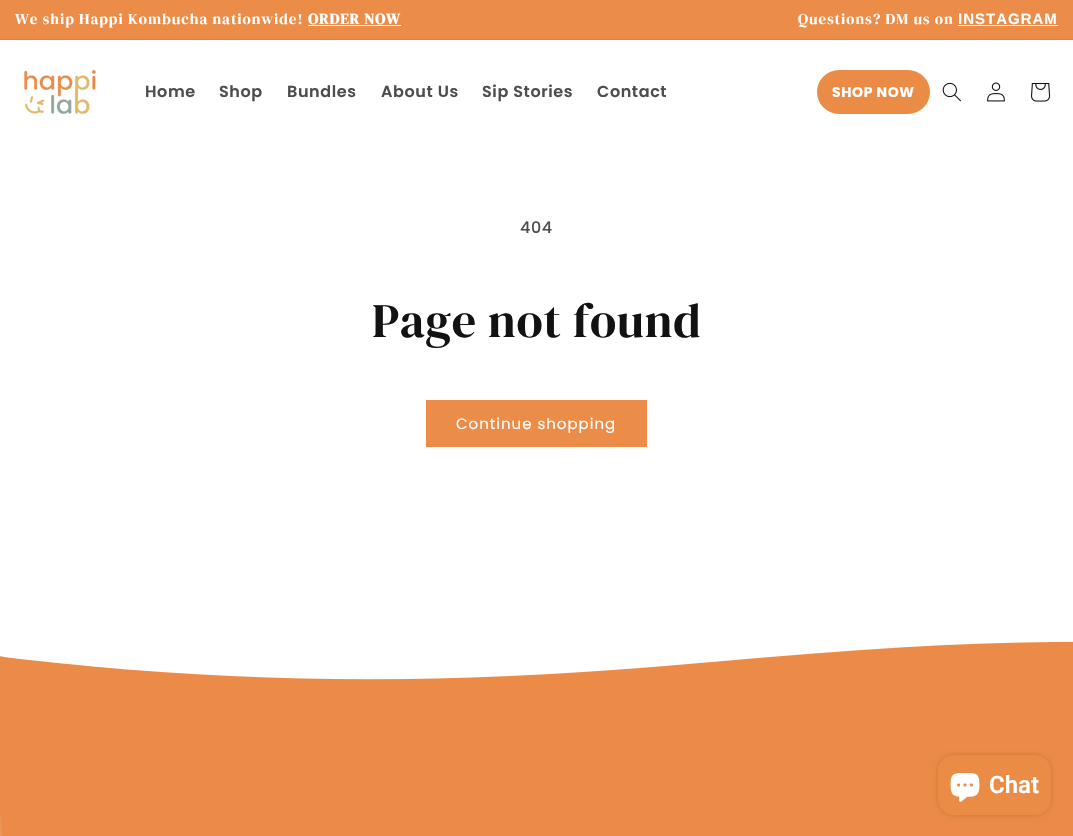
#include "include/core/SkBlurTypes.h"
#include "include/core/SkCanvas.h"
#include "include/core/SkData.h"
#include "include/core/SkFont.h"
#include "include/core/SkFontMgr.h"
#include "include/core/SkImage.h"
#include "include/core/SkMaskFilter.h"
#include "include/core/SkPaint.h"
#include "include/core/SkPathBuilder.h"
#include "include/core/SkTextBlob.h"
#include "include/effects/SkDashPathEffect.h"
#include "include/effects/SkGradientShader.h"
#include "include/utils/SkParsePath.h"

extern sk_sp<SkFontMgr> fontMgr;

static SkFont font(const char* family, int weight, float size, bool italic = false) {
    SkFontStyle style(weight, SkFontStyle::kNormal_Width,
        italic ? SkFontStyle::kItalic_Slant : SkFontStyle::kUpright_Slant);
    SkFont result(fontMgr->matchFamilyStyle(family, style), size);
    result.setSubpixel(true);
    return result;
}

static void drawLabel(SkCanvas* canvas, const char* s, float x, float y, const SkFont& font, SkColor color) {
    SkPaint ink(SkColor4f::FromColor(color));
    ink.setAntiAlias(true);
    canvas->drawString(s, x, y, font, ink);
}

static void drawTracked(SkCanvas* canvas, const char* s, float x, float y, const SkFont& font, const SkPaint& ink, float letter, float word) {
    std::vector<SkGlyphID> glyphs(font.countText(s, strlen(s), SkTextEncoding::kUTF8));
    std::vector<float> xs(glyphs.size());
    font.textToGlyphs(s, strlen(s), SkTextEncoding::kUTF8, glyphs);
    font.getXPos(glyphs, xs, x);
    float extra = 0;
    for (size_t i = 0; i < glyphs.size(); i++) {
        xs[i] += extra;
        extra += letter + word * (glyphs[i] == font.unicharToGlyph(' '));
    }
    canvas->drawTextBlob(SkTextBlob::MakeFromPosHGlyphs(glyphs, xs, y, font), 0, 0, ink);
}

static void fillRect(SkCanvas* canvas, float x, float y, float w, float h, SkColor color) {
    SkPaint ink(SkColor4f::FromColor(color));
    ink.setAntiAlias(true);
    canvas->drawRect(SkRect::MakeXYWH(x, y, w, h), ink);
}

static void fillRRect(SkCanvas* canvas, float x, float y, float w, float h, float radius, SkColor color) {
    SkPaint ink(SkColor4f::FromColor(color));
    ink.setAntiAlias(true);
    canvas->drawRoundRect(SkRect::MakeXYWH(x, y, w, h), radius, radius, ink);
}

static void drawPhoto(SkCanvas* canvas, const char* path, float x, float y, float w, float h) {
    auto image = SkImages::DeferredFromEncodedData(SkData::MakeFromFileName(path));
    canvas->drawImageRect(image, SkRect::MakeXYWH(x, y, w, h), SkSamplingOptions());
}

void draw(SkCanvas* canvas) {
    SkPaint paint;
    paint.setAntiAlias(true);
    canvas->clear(0xFFFFFFFF);
    fillRect(canvas, 0, 0, 1073, 39, 0xFFEB8D48);
    fillRect(canvas, 0, 39, 1073, 1, 0xFFDA8344);
    SkFont font1 = font("DM Serif Display", 400, 15);
    paint.setColor(0xFFFFFFFF);
    drawTracked(canvas, "We ship Happi Kombucha nationwide!", 15, 24, font1, paint, 1, 0);
    SkFont font2 = font("DM Serif Display", 700, 15);
    drawTracked(canvas, "ORDER NOW", 308, 24, font2, paint, 1, 0);
    fillRect(canvas, 308, 25, 93, 1, 0xFFFFFFFF);
    drawTracked(canvas, "Questions? DM us on", 798, 24, font1, paint, 1, 0);
    SkFont font3 = font("Liberation Sans", 700, 15);
    drawTracked(canvas, "INSTAGRAM", 958, 24, font3, paint, 1, 0);
    fillRect(canvas, 958, 25, 100, 1, 0xFFFFFFFF);
    drawPhoto(canvas, "assets/img1.png", 24, 70, 72, 44);
    SkFont font4 = font("Poppins", 600, 16);
    paint.setColor(0xFF4D4D4D);
    drawTracked(canvas, "Home", 145, 97, font4, paint, 0.6f, 0);
    drawTracked(canvas, "Shop", 219, 97, font4, paint, 0.6f, 0);
    drawTracked(canvas, "Bundles", 287, 97, font4, paint, 0.6f, 0);
    drawTracked(canvas, "About Us", 381, 97, font4, paint, 0.6f, 0);
    drawTracked(canvas, "Sip Stories", 482, 97, font4, paint, 0.6f, 0);
    drawTracked(canvas, "Contact", 597, 97, font4, paint, 0.6f, 0);
    fillRRect(canvas, 817, 70, 113, 44, 22, 0xFFEA8B46);
    SkFont font5 = font("Poppins", 700, 14);
    paint.setColor(0xFFFFFFFF);
    drawTracked(canvas, "SHOP NOW", 832, 97, font5, paint, 0.6f, 0);
    drawPhoto(canvas, "assets/img2.png", 942, 82, 19, 20);
    drawPhoto(canvas, "assets/img3.png", 987, 82, 18, 20);
    drawPhoto(canvas, "assets/img4.png", 1031, 83, 20, 19);
    SkFont font6 = font("Poppins", 500, 16);
    paint.setColor(0xFF4D4D4D);
    drawTracked(canvas, "404", 520, 233, font6, paint, 0.6f, 0);
    SkFont font7 = font("DM Serif Display", 400, 48);
    paint.setColor(0xFF121212);
    drawTracked(canvas, "Page not found", 372, 337, font7, paint, 0.75f, 0);
    fillRect(canvas, 426, 400, 221, 47, 0xFFEB8D48);
    SkFont font8 = font("Poppins", 400, 15);
    paint.setColor(0xFFFFFFFF);
    drawTracked(canvas, "Continue shopping", 456, 429, font8, paint, 1, 0);
    drawPhoto(canvas, "assets/img5.png", 0, 641, 1073, 195);
    paint.setColor(0x26000000);
    paint.setMaskFilter(SkMaskFilter::MakeBlur(kNormal_SkBlurStyle, 2.5f));
    canvas->drawRoundRect(SkRect::MakeXYWH(938, 755, 113, 60), 16, 16, paint);
    paint.setMaskFilter(nullptr);
    fillRRect(canvas, 938, 755, 113, 60, 16, 0xFFEA8B46);
    drawPhoto(canvas, "assets/img6.png", 950, 773, 30, 29);
    SkFont font9 = font("Roboto", 600, 24);
    drawLabel(canvas, "Chat", 989, 793, font9, 0xFFFFFFFF);
}
